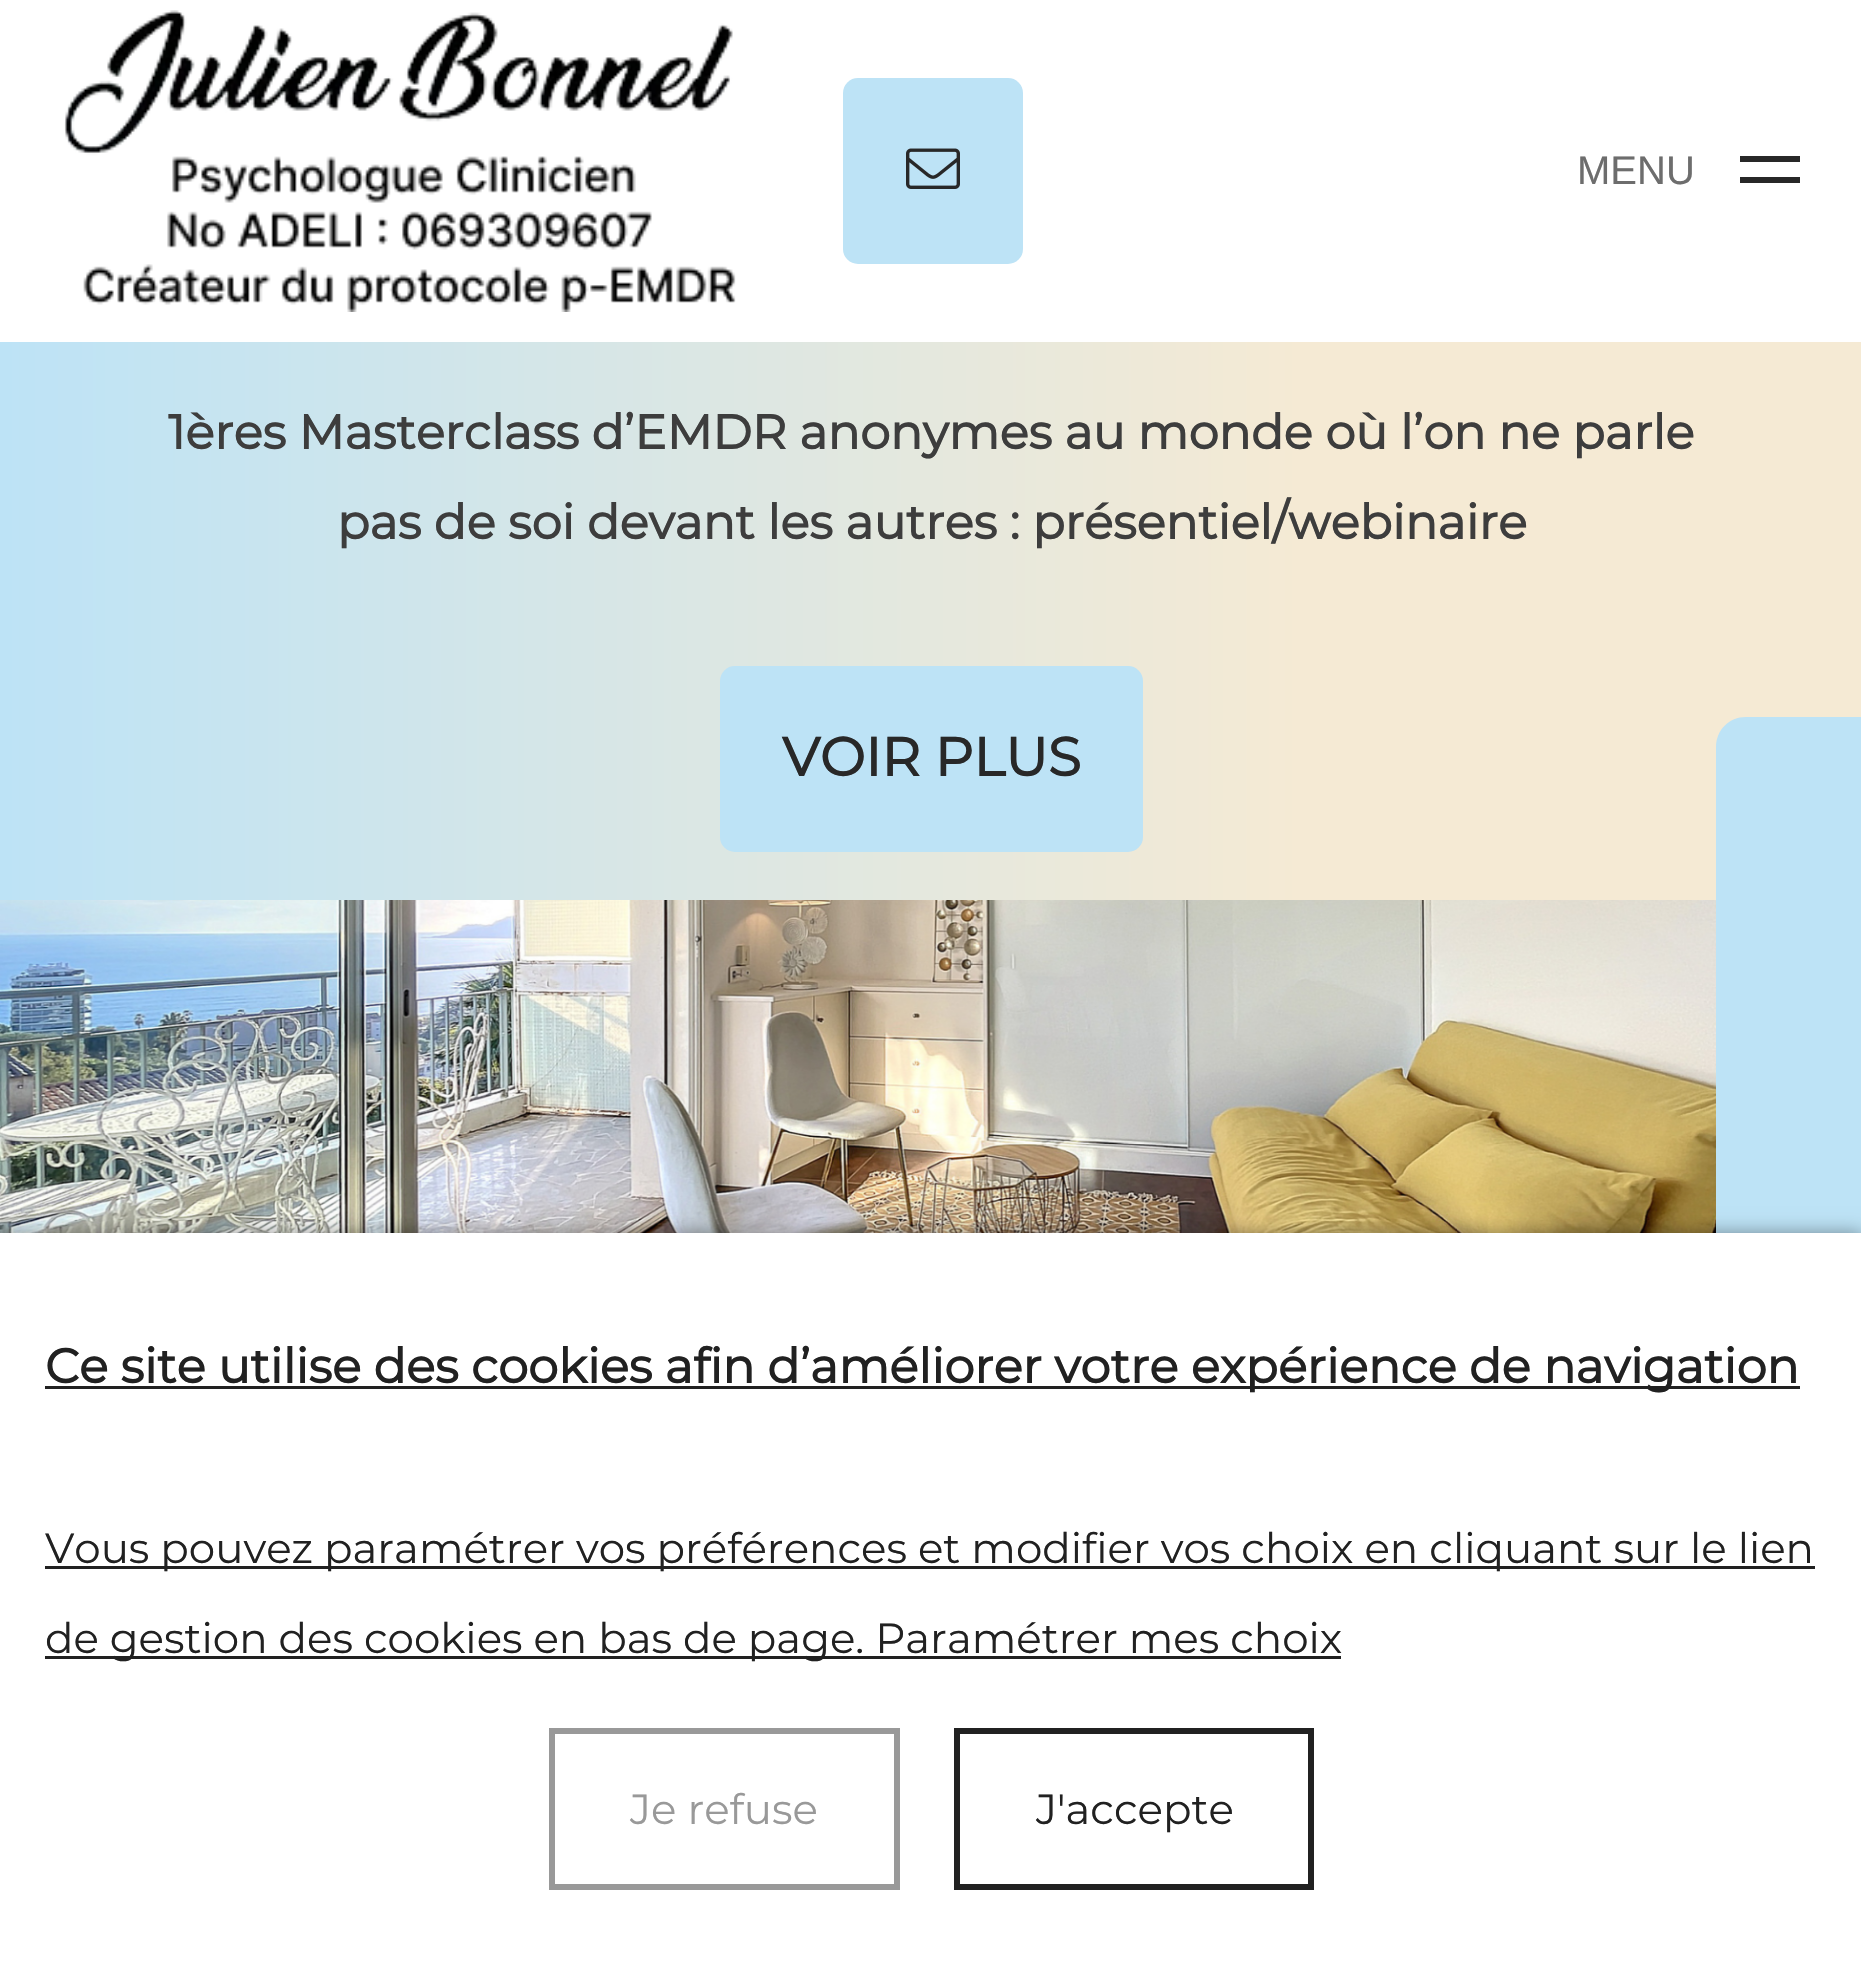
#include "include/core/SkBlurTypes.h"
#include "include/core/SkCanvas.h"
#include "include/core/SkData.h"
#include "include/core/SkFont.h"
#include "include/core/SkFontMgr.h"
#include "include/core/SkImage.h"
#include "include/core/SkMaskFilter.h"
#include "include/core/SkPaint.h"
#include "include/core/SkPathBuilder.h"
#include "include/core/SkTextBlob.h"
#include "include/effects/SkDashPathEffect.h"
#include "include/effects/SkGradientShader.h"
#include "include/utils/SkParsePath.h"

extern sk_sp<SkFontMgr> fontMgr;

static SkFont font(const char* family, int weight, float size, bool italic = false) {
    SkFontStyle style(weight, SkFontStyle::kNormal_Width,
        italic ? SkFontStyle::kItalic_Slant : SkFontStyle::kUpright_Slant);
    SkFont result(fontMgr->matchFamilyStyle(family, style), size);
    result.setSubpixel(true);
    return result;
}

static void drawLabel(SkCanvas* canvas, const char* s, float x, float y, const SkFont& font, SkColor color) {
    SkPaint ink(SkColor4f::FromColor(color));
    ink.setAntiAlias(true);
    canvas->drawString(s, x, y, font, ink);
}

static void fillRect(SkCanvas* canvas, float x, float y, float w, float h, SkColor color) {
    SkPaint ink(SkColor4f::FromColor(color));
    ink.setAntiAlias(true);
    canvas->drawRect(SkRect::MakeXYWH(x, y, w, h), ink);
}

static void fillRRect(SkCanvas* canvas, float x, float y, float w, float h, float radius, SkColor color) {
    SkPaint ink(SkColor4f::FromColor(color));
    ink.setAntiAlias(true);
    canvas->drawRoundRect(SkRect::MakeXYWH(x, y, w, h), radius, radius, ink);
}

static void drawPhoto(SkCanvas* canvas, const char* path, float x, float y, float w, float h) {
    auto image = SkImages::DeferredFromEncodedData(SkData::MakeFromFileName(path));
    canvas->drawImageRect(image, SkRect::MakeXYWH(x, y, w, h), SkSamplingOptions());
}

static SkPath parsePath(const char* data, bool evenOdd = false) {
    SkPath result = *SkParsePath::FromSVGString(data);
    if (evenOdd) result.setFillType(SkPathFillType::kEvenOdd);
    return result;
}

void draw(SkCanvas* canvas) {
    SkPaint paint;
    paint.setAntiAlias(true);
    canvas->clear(0xFFFFFFFF);
    drawPhoto(canvas, "assets/img1.png", 64, 10, 672, 302);
    fillRRect(canvas, 843, 78, 180, 186, 15, 0xFFBDE3F6);
    drawPhoto(canvas, "assets/img2.png", 906, 148, 54, 41);
    SkFont font1 = font("Liberation Sans", 400, 40);
    drawLabel(canvas, "MENU", 1577, 184, font1, 0xFF6D6D6D);
    fillRect(canvas, 1740, 156, 60, 6, 0xFF282828);
    fillRect(canvas, 1740, 177, 60, 6, 0xFF282828);
    {
        const SkColor colors[] = {0xFFBDE3F6, 0xFFF5EAD4};
        const float stops[] = {0, 0.7f};
        const SkPoint ends[] = {{0, 621}, {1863, 621}};
        paint.setShader(SkGradientShader::MakeLinear(ends, colors, stops, 2, SkTileMode::kClamp));
        paint.setAlpha(255);
    }
    canvas->drawRect(SkRect::MakeXYWH(0, 342, 1861, 558), paint);
    SkFont font2 = font("Montserrat", 700, 48);
    drawLabel(canvas, "1ères Masterclass d’EMDR anonymes au monde où l’on ne parle", 168, 449, font2, 0xFF3D3D3D);
    drawLabel(canvas, "pas de soi devant les autres : présentiel/webinaire", 337, 539, font2, 0xFF3D3D3D);
    fillRRect(canvas, 720, 666, 423, 186, 15, 0xFFBDE3F6);
    SkFont font3 = font("Montserrat", 700, 54);
    drawLabel(canvas, "VOIR PLUS", 782, 776, font3, 0xFF282828);
    drawPhoto(canvas, "assets/img3.png", 0, 900, 1716, 333);
    paint.setShader(nullptr);
    paint.setColor(0xFFBDE3F6);
    canvas->drawPath(parsePath("M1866 717V1413H1746C1729 1413 1716 1400 1716 1383V747C1716 730 1729 717 1746 717Z"), paint);
    paint.setColor(0x66000000);
    paint.setMaskFilter(SkMaskFilter::MakeBlur(kNormal_SkBlurStyle, 9));
    canvas->drawRect(SkRect::MakeXYWH(0, 1233, 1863, 747), paint);
    paint.setMaskFilter(nullptr);
    fillRect(canvas, 0, 1233, 1861, 747, 0xFFFFFFFF);
    fillRect(canvas, 45, 1386, 1755, 3, 0xFF212121);
    drawLabel(canvas, "Ce site utilise des cookies afin d’améliorer votre expérience de navigation", 45, 1383, font2, 0xFF212121);
    fillRect(canvas, 45, 1566, 1770, 3, 0xFF212121);
    SkFont font4 = font("Montserrat", 400, 42);
    drawLabel(canvas, "Vous pouvez paramétrer vos préférences et modifier vos choix en cliquant sur le lien", 45, 1563, font4, 0xFF212121);
    fillRect(canvas, 45, 1656, 1296, 3, 0xFF212121);
    drawLabel(canvas, "de gestion des cookies en bas de page. Paramétrer mes choix", 45, 1653, font4, 0xFF212121);
    paint.setStroke(true);
    paint.setStrokeWidth(6);
    paint.setColor(0xFF999999);
    canvas->drawRect(SkRect::MakeXYWH(552, 1731, 345, 156), paint);
    drawLabel(canvas, "Je refuse", 630, 1824, font4, 0xFF999999);
    paint.setColor(0xFF212121);
    canvas->drawRect(SkRect::MakeXYWH(957, 1731, 354, 156), paint);
    drawLabel(canvas, "J'accepte", 1036, 1824, font4, 0xFF212121);
}
